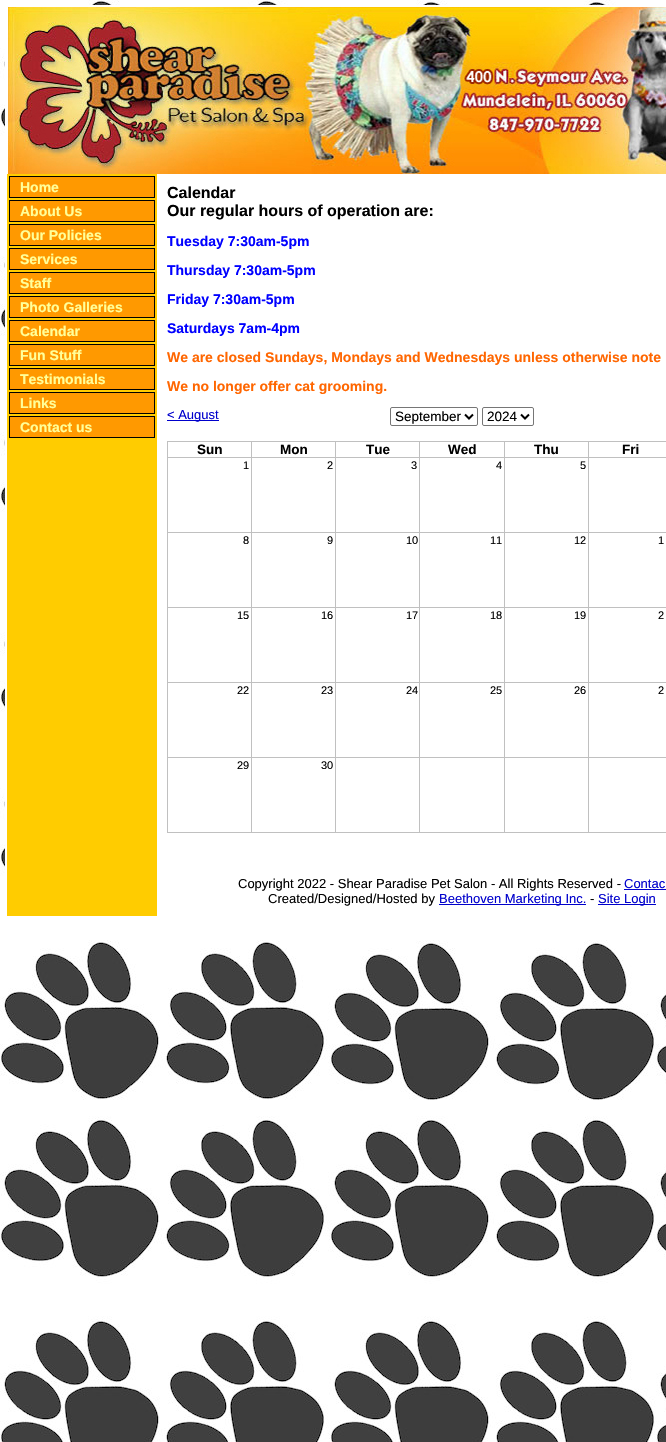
#include "include/core/SkBlurTypes.h"
#include "include/core/SkCanvas.h"
#include "include/core/SkData.h"
#include "include/core/SkFont.h"
#include "include/core/SkFontMgr.h"
#include "include/core/SkImage.h"
#include "include/core/SkMaskFilter.h"
#include "include/core/SkPaint.h"
#include "include/core/SkPathBuilder.h"
#include "include/core/SkTextBlob.h"
#include "include/effects/SkDashPathEffect.h"
#include "include/effects/SkGradientShader.h"
#include "include/utils/SkParsePath.h"

extern sk_sp<SkFontMgr> fontMgr;

static SkFont font(const char* family, int weight, float size, bool italic = false) {
    SkFontStyle style(weight, SkFontStyle::kNormal_Width,
        italic ? SkFontStyle::kItalic_Slant : SkFontStyle::kUpright_Slant);
    SkFont result(fontMgr->matchFamilyStyle(family, style), size);
    result.setSubpixel(true);
    return result;
}

static void drawLabel(SkCanvas* canvas, const char* s, float x, float y, const SkFont& font, SkColor color) {
    SkPaint ink(SkColor4f::FromColor(color));
    ink.setAntiAlias(true);
    canvas->drawString(s, x, y, font, ink);
}

static void fillRect(SkCanvas* canvas, float x, float y, float w, float h, SkColor color) {
    SkPaint ink(SkColor4f::FromColor(color));
    ink.setAntiAlias(true);
    canvas->drawRect(SkRect::MakeXYWH(x, y, w, h), ink);
}

static void drawPhoto(SkCanvas* canvas, const char* path, float x, float y, float w, float h) {
    auto image = SkImages::DeferredFromEncodedData(SkData::MakeFromFileName(path));
    canvas->drawImageRect(image, SkRect::MakeXYWH(x, y, w, h), SkSamplingOptions());
}

static SkPath parsePath(const char* data, bool evenOdd = false) {
    SkPath result = *SkParsePath::FromSVGString(data);
    if (evenOdd) result.setFillType(SkPathFillType::kEvenOdd);
    return result;
}

void draw(SkCanvas* canvas) {
    SkPaint paint;
    paint.setAntiAlias(true);
    canvas->clear(0xFFFFFFFF);
    drawPhoto(canvas, "assets/img1.png", 0, 0, 666, 1442);
    fillRect(canvas, 5, 5, 661, 895, 0xFFFFFFFF);
    drawPhoto(canvas, "assets/img2.png", 7, 7, 659, 167);
    fillRect(canvas, 7, 174, 150, 742, 0xFFFFCC00);
    fillRect(canvas, 9, 176, 146, 22, 0xFF000000);
    fillRect(canvas, 10, 177, 144, 20, 0xFFFF9900);
    SkFont font1 = font("Liberation Sans", 700, 14);
    drawLabel(canvas, "Home", 20, 192, font1, 0xFFFFFF99);
    fillRect(canvas, 9, 200, 146, 22, 0xFF000000);
    fillRect(canvas, 10, 201, 144, 20, 0xFFFF9900);
    drawLabel(canvas, "About Us", 20, 216, font1, 0xFFFFFF99);
    fillRect(canvas, 9, 224, 146, 22, 0xFF000000);
    fillRect(canvas, 10, 225, 144, 20, 0xFFFF9900);
    drawLabel(canvas, "Our Policies", 20, 240, font1, 0xFFFFFF99);
    fillRect(canvas, 9, 248, 146, 22, 0xFF000000);
    fillRect(canvas, 10, 249, 144, 20, 0xFFFF9900);
    drawLabel(canvas, "Services", 20, 264, font1, 0xFFFFFF99);
    fillRect(canvas, 9, 272, 146, 22, 0xFF000000);
    fillRect(canvas, 10, 273, 144, 20, 0xFFFF9900);
    drawLabel(canvas, "Staff", 20, 288, font1, 0xFFFFFF99);
    fillRect(canvas, 9, 296, 146, 22, 0xFF000000);
    fillRect(canvas, 10, 297, 144, 20, 0xFFFF9900);
    drawLabel(canvas, "Photo Galleries", 20, 312, font1, 0xFFFFFF99);
    fillRect(canvas, 9, 320, 146, 22, 0xFF000000);
    fillRect(canvas, 10, 321, 144, 20, 0xFFFF9900);
    drawLabel(canvas, "Calendar", 20, 336, font1, 0xFFFFFF99);
    fillRect(canvas, 9, 344, 146, 22, 0xFF000000);
    fillRect(canvas, 10, 345, 144, 20, 0xFFFF9900);
    drawLabel(canvas, "Fun Stuff", 20, 360, font1, 0xFFFFFF99);
    fillRect(canvas, 9, 368, 146, 22, 0xFF000000);
    fillRect(canvas, 10, 369, 144, 20, 0xFFFF9900);
    drawLabel(canvas, "Testimonials", 20, 384, font1, 0xFFFFFF99);
    fillRect(canvas, 9, 392, 146, 22, 0xFF000000);
    fillRect(canvas, 10, 393, 144, 20, 0xFFFF9900);
    drawLabel(canvas, "Links", 20, 408, font1, 0xFFFFFF99);
    fillRect(canvas, 9, 416, 146, 22, 0xFF000000);
    fillRect(canvas, 10, 417, 144, 20, 0xFFFF9900);
    drawLabel(canvas, "Contact us", 20, 432, font1, 0xFFFFFF99);
    SkFont font2 = font("Liberation Sans", 700, 16);
    drawLabel(canvas, "Calendar", 167, 198, font2, 0xFF000000);
    drawLabel(canvas, "Our regular hours of operation are:", 167, 216, font2, 0xFF000000);
    drawLabel(canvas, "Tuesday 7:30am-5pm", 167, 246, font1, 0xFF0000FF);
    drawLabel(canvas, "Thursday 7:30am-5pm", 167, 275, font1, 0xFF0000FF);
    drawLabel(canvas, "Friday 7:30am-5pm", 167, 304, font1, 0xFF0000FF);
    drawLabel(canvas, "Saturdays 7am-4pm", 167, 333, font1, 0xFF0000FF);
    drawLabel(canvas, "We are closed Sundays, Mondays and Wednesdays unless otherwise note", 167, 362, font1, 0xFFFF6600);
    drawLabel(canvas, "We no longer offer cat grooming.", 167, 391, font1, 0xFFFF6600);
    fillRect(canvas, 167, 420, 52, 1, 0xFF0000CC);
    SkFont font3 = font("Liberation Sans", 400, 13);
    drawLabel(canvas, "< August", 167, 419, font3, 0xFF0000CC);
    paint.setStroke(true);
    paint.setStrokeWidth(1);
    paint.setColor(0xFF767676);
    canvas->drawRoundRect(SkRect::MakeXYWH(390.5f, 407.5f, 87, 18), 1.5f, 1.5f, paint);
    paint.setStrokeWidth(2);
    paint.setColor(0xFF000000);
    canvas->drawPath(parsePath("M465 414.5L469 418.5L473 414.5"), paint);
    SkFont font4 = font("Liberation Sans", 400, 13.5f);
    drawLabel(canvas, "September", 395, 421, font4, 0xFF000000);
    paint.setStrokeWidth(1);
    paint.setColor(0xFF767676);
    canvas->drawRoundRect(SkRect::MakeXYWH(482.5f, 407.5f, 51, 18), 1.5f, 1.5f, paint);
    paint.setStrokeWidth(2);
    paint.setColor(0xFF000000);
    canvas->drawPath(parsePath("M521 414.5L525 418.5L529 414.5"), paint);
    drawLabel(canvas, "2024", 487, 421, font4, 0xFF000000);
    fillRect(canvas, 167, 441, 499, 1, 0xFFC0C0C0);
    fillRect(canvas, 167, 832, 499, 1, 0xFFC0C0C0);
    fillRect(canvas, 167, 441, 1, 392, 0xFFC0C0C0);
    SkFont font5 = font("Liberation Sans", 700, 13.5f);
    drawLabel(canvas, "Sun", 197, 454, font5, 0xFF000000);
    fillRect(canvas, 588, 457, 78, 1, 0xFFC0C0C0);
    fillRect(canvas, 588, 532, 78, 1, 0xFFC0C0C0);
    fillRect(canvas, 588, 607, 78, 1, 0xFFC0C0C0);
    fillRect(canvas, 588, 682, 78, 1, 0xFFC0C0C0);
    fillRect(canvas, 588, 757, 78, 1, 0xFFC0C0C0);
    fillRect(canvas, 588, 757, 1, 76, 0xFFC0C0C0);
    fillRect(canvas, 504, 757, 85, 1, 0xFFC0C0C0);
    fillRect(canvas, 588, 682, 1, 76, 0xFFC0C0C0);
    fillRect(canvas, 504, 682, 85, 1, 0xFFC0C0C0);
    fillRect(canvas, 588, 607, 1, 76, 0xFFC0C0C0);
    fillRect(canvas, 504, 607, 85, 1, 0xFFC0C0C0);
    fillRect(canvas, 588, 532, 1, 76, 0xFFC0C0C0);
    fillRect(canvas, 504, 532, 85, 1, 0xFFC0C0C0);
    fillRect(canvas, 588, 457, 1, 76, 0xFFC0C0C0);
    fillRect(canvas, 504, 457, 85, 1, 0xFFC0C0C0);
    fillRect(canvas, 504, 757, 1, 76, 0xFFC0C0C0);
    fillRect(canvas, 419, 757, 86, 1, 0xFFC0C0C0);
    fillRect(canvas, 504, 682, 1, 76, 0xFFC0C0C0);
    fillRect(canvas, 419, 682, 86, 1, 0xFFC0C0C0);
    fillRect(canvas, 504, 607, 1, 76, 0xFFC0C0C0);
    fillRect(canvas, 419, 607, 86, 1, 0xFFC0C0C0);
    fillRect(canvas, 504, 532, 1, 76, 0xFFC0C0C0);
    fillRect(canvas, 419, 532, 86, 1, 0xFFC0C0C0);
    fillRect(canvas, 504, 457, 1, 76, 0xFFC0C0C0);
    fillRect(canvas, 419, 457, 86, 1, 0xFFC0C0C0);
    fillRect(canvas, 419, 757, 1, 76, 0xFFC0C0C0);
    fillRect(canvas, 335, 757, 85, 1, 0xFFC0C0C0);
    fillRect(canvas, 419, 682, 1, 76, 0xFFC0C0C0);
    fillRect(canvas, 335, 682, 85, 1, 0xFFC0C0C0);
    fillRect(canvas, 419, 607, 1, 76, 0xFFC0C0C0);
    fillRect(canvas, 335, 607, 85, 1, 0xFFC0C0C0);
    fillRect(canvas, 419, 532, 1, 76, 0xFFC0C0C0);
    fillRect(canvas, 335, 532, 85, 1, 0xFFC0C0C0);
    fillRect(canvas, 419, 457, 1, 76, 0xFFC0C0C0);
    fillRect(canvas, 335, 457, 85, 1, 0xFFC0C0C0);
    fillRect(canvas, 335, 757, 1, 76, 0xFFC0C0C0);
    fillRect(canvas, 251, 757, 85, 1, 0xFFC0C0C0);
    fillRect(canvas, 335, 682, 1, 76, 0xFFC0C0C0);
    fillRect(canvas, 251, 682, 85, 1, 0xFFC0C0C0);
    fillRect(canvas, 335, 607, 1, 76, 0xFFC0C0C0);
    fillRect(canvas, 251, 607, 85, 1, 0xFFC0C0C0);
    fillRect(canvas, 335, 532, 1, 76, 0xFFC0C0C0);
    fillRect(canvas, 251, 532, 85, 1, 0xFFC0C0C0);
    fillRect(canvas, 335, 457, 1, 76, 0xFFC0C0C0);
    fillRect(canvas, 251, 457, 85, 1, 0xFFC0C0C0);
    fillRect(canvas, 251, 757, 1, 76, 0xFFC0C0C0);
    fillRect(canvas, 167, 757, 85, 1, 0xFFC0C0C0);
    fillRect(canvas, 251, 682, 1, 76, 0xFFC0C0C0);
    fillRect(canvas, 167, 682, 85, 1, 0xFFC0C0C0);
    fillRect(canvas, 251, 607, 1, 76, 0xFFC0C0C0);
    fillRect(canvas, 167, 607, 85, 1, 0xFFC0C0C0);
    fillRect(canvas, 251, 532, 1, 76, 0xFFC0C0C0);
    fillRect(canvas, 167, 532, 85, 1, 0xFFC0C0C0);
    fillRect(canvas, 251, 457, 1, 76, 0xFFC0C0C0);
    fillRect(canvas, 167, 457, 85, 1, 0xFFC0C0C0);
    fillRect(canvas, 251, 441, 1, 17, 0xFFC0C0C0);
    drawLabel(canvas, "Mon", 280, 454, font5, 0xFF000000);
    fillRect(canvas, 335, 441, 1, 17, 0xFFC0C0C0);
    drawLabel(canvas, "Tue", 366, 454, font5, 0xFF000000);
    fillRect(canvas, 419, 441, 1, 17, 0xFFC0C0C0);
    drawLabel(canvas, "Wed", 448, 454, font5, 0xFF000000);
    fillRect(canvas, 504, 441, 1, 17, 0xFFC0C0C0);
    drawLabel(canvas, "Thu", 534, 454, font5, 0xFF000000);
    fillRect(canvas, 588, 441, 1, 17, 0xFFC0C0C0);
    drawLabel(canvas, "Fri", 622, 454, font5, 0xFF000000);
    SkFont font6 = font("Liberation Sans", 400, 11);
    drawLabel(canvas, "1", 243, 469, font6, 0xFF000000);
    drawLabel(canvas, "2", 327, 469, font6, 0xFF000000);
    drawLabel(canvas, "3", 411, 469, font6, 0xFF000000);
    drawLabel(canvas, "4", 496, 469, font6, 0xFF000000);
    drawLabel(canvas, "5", 580, 469, font6, 0xFF000000);
    drawLabel(canvas, "8", 243, 544, font6, 0xFF000000);
    drawLabel(canvas, "9", 327, 544, font6, 0xFF000000);
    drawLabel(canvas, "10", 406, 544, font6, 0xFF000000);
    drawLabel(canvas, "11", 490, 544, font6, 0xFF000000);
    drawLabel(canvas, "12", 574, 544, font6, 0xFF000000);
    drawLabel(canvas, "1", 658, 544, font6, 0xFF000000);
    drawLabel(canvas, "15", 237, 619, font6, 0xFF000000);
    drawLabel(canvas, "16", 321, 619, font6, 0xFF000000);
    drawLabel(canvas, "17", 406, 619, font6, 0xFF000000);
    drawLabel(canvas, "18", 490, 619, font6, 0xFF000000);
    drawLabel(canvas, "19", 574, 619, font6, 0xFF000000);
    drawLabel(canvas, "2", 658, 619, font6, 0xFF000000);
    drawLabel(canvas, "22", 237, 694, font6, 0xFF000000);
    drawLabel(canvas, "23", 321, 694, font6, 0xFF000000);
    drawLabel(canvas, "24", 406, 694, font6, 0xFF000000);
    drawLabel(canvas, "25", 490, 694, font6, 0xFF000000);
    drawLabel(canvas, "26", 574, 694, font6, 0xFF000000);
    drawLabel(canvas, "2", 658, 694, font6, 0xFF000000);
    drawLabel(canvas, "29", 237, 769, font6, 0xFF000000);
    drawLabel(canvas, "30", 321, 769, font6, 0xFF000000);
    drawLabel(canvas, "Copyright 2022 - Shear Paradise Pet Salon - All Rights Reserved -", 238, 888, font3, 0xFF000000);
    drawLabel(canvas, "Contac", 624, 888, font3, 0xFF0000CC);
    fillRect(canvas, 624, 889, 42, 1, 0xFF0000CC);
    drawLabel(canvas, "Created/Designed/Hosted by", 268, 903, font3, 0xFF000000);
    fillRect(canvas, 439, 904, 147, 1, 0xFF0000CC);
    drawLabel(canvas, "Beethoven Marketing Inc.", 439, 903, font3, 0xFF0000CC);
    drawLabel(canvas, "-", 590, 903, font3, 0xFF000000);
    fillRect(canvas, 598, 904, 58, 1, 0xFF0000CC);
    drawLabel(canvas, "Site Login", 598, 903, font3, 0xFF0000CC);
}
